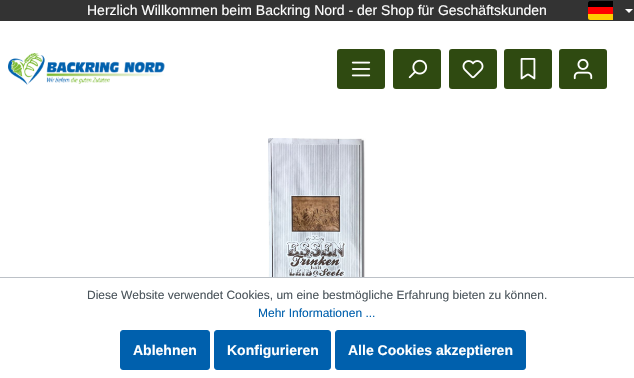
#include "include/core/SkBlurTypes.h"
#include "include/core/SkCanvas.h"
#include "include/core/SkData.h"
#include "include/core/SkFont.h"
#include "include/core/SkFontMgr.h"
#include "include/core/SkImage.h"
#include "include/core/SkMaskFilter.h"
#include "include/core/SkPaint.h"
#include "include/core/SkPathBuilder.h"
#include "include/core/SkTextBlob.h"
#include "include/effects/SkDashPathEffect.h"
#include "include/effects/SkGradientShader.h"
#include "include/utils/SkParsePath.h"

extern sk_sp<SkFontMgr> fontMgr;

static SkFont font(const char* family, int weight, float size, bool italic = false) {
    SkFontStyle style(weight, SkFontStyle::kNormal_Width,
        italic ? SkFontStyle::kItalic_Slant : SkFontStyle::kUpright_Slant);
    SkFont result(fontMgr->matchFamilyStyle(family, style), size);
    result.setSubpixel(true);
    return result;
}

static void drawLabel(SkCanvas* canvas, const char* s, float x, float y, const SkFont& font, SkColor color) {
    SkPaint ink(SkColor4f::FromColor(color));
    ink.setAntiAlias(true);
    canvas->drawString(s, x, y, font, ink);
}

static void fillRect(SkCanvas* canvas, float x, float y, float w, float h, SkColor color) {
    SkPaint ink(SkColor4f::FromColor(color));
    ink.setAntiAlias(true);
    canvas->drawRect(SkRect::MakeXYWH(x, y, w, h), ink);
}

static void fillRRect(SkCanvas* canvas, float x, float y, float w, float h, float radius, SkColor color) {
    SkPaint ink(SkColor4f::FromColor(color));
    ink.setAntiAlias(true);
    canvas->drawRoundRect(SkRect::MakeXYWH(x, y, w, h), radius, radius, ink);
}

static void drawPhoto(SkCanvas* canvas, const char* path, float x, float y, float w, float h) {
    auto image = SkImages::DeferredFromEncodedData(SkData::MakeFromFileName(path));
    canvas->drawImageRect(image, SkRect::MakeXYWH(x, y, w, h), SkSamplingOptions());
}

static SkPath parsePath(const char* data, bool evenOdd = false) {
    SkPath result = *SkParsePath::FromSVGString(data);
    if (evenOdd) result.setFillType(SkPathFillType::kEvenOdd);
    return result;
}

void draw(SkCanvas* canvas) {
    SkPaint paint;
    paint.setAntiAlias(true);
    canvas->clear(0xFFFFFFFF);
    fillRect(canvas, 0, 0, 634, 21, 0xFF333333);
    SkFont font1 = font("Liberation Sans", 400, 14);
    drawLabel(canvas, "Herzlich Willkommen beim Backring Nord - der Shop für Geschäftskunden", 87, 15, font1, 0xFFFFFFFF);
    paint.setColor(0xFF000000);
    canvas->drawPath(parsePath("M590 1H613V7H588V3C588 2 589 1 590 1Z"), paint);
    fillRect(canvas, 588, 7, 25, 7, 0xFFFF0000);
    paint.setColor(0xFFFFCC00);
    canvas->drawPath(parsePath("M588 14H613V20H590C589 20 588 19 588 18Z"), paint);
    paint.setColor(0xFFFFFFFF);
    canvas->drawPath(parsePath("M625 9H633L629 13Z"), paint);
    drawPhoto(canvas, "assets/img1.png", 8, 53, 157, 32);
    fillRRect(canvas, 337, 49, 48, 40, 3, 0xFF2F4A11);
    drawPhoto(canvas, "assets/img2.png", 351, 61, 20, 16);
    fillRRect(canvas, 393, 49, 48, 40, 3, 0xFF2F4A11);
    drawPhoto(canvas, "assets/img3.png", 408, 59, 20, 20);
    fillRRect(canvas, 449, 49, 48, 40, 3, 0xFF2F4A11);
    drawPhoto(canvas, "assets/img4.png", 462, 60, 22, 19);
    fillRRect(canvas, 504, 49, 48, 40, 3, 0xFF2F4A11);
    drawPhoto(canvas, "assets/img5.png", 520, 58, 16, 22);
    fillRRect(canvas, 559, 49, 48, 40, 3, 0xFF2F4A11);
    drawPhoto(canvas, "assets/img6.png", 573, 58, 20, 22);
    drawPhoto(canvas, "assets/img7.png", 268, 138, 98, 139);
    fillRect(canvas, 0, 277, 634, 1, 0xFFBCC1C7);
    SkFont font2 = font("Liberation Sans", 400, 12);
    drawLabel(canvas, "Diese Website verwendet Cookies, um eine bestmögliche Erfahrung bieten zu können.", 87, 299, font2, 0xFF4A545B);
    drawLabel(canvas, "Mehr Informationen ...", 258, 317, font2, 0xFF0060AD);
    paint.setColor(0xFF0060AD);
    canvas->drawRoundRect(SkRect::MakeXYWH(120.5f, 330.5f, 89, 39), 2.5f, 2.5f, paint);
    paint.setStroke(true);
    paint.setStrokeWidth(1);
    canvas->drawRoundRect(SkRect::MakeXYWH(120.5f, 330.5f, 89, 39), 2.5f, 2.5f, paint);
    SkFont font3 = font("Liberation Sans", 700, 14);
    drawLabel(canvas, "Ablehnen", 133, 355, font3, 0xFFFFFFFF);
    paint.setStroke(false);
    canvas->drawRoundRect(SkRect::MakeXYWH(214.5f, 330.5f, 116, 39), 2.5f, 2.5f, paint);
    paint.setStroke(true);
    canvas->drawRoundRect(SkRect::MakeXYWH(214.5f, 330.5f, 116, 39), 2.5f, 2.5f, paint);
    drawLabel(canvas, "Konfigurieren", 227, 355, font3, 0xFFFFFFFF);
    paint.setStroke(false);
    canvas->drawRoundRect(SkRect::MakeXYWH(335.5f, 330.5f, 190, 39), 2.5f, 2.5f, paint);
    paint.setStroke(true);
    canvas->drawRoundRect(SkRect::MakeXYWH(335.5f, 330.5f, 190, 39), 2.5f, 2.5f, paint);
    drawLabel(canvas, "Alle Cookies akzeptieren", 348, 355, font3, 0xFFFFFFFF);
}
